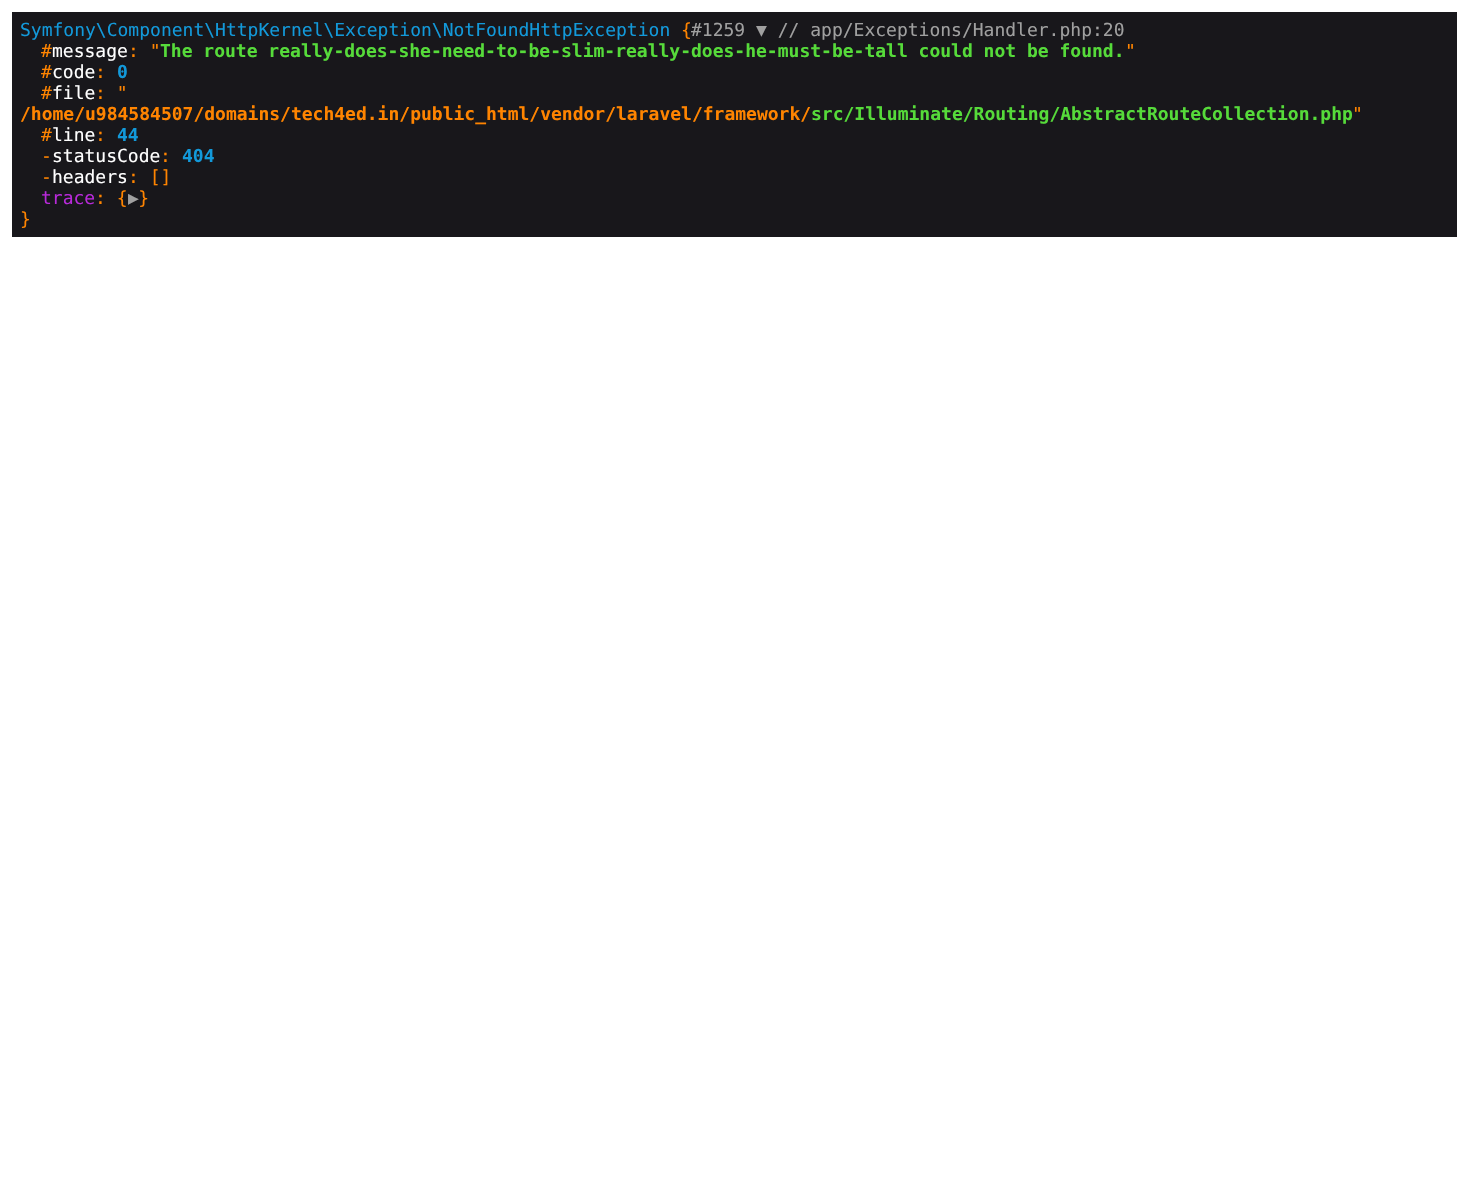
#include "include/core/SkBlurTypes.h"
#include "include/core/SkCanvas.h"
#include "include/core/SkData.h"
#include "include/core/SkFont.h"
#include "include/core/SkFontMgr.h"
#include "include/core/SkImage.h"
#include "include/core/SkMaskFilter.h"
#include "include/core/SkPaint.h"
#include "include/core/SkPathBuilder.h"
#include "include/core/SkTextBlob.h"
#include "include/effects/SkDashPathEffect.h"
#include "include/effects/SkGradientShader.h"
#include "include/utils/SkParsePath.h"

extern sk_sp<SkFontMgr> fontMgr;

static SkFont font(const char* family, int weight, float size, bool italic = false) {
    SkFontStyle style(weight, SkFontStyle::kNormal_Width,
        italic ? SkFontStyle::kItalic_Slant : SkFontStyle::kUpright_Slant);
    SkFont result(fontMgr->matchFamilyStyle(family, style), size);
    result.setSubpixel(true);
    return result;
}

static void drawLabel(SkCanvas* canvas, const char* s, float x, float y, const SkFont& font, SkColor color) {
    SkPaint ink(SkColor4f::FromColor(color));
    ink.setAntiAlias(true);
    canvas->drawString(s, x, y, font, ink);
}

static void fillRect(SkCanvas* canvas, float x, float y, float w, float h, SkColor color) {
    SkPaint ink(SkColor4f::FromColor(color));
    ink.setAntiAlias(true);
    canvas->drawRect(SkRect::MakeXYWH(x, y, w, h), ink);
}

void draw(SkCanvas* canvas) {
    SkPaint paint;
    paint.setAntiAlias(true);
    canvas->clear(0xFFFFFFFF);
    fillRect(canvas, 12, 12, 1445, 225, 0xFF18171B);
    SkFont font1 = font("DejaVu Sans Mono", 400, 18);
    drawLabel(canvas, "Symfony\\Component\\HttpKernel\\Exception\\NotFoundHttpException", 20, 36, font1, 0xFF1299DA);
    drawLabel(canvas, "{", 681, 36, font1, 0xFFFF8400);
    drawLabel(canvas, "#1259 ▼ // app/Exceptions/Handler.php:20", 691, 36, font1, 0xFFA0A0A0);
    drawLabel(canvas, "#", 41, 57, font1, 0xFFFF8400);
    drawLabel(canvas, "message", 52, 57, font1, 0xFFFFFFFF);
    drawLabel(canvas, ": \"", 128, 57, font1, 0xFFFF8400);
    SkFont font2 = font("DejaVu Sans Mono", 700, 18);
    drawLabel(canvas, "The route really-does-she-need-to-be-slim-really-does-he-must-be-tall could not be found.", 160, 57, font2, 0xFF56DB3A);
    drawLabel(canvas, "\"", 1125, 57, font1, 0xFFFF8400);
    drawLabel(canvas, "#", 41, 78, font1, 0xFFFF8400);
    drawLabel(canvas, "code", 52, 78, font1, 0xFFFFFFFF);
    drawLabel(canvas, ":", 95, 78, font1, 0xFFFF8400);
    drawLabel(canvas, "0", 117, 78, font2, 0xFF1299DA);
    drawLabel(canvas, "#", 41, 99, font1, 0xFFFF8400);
    drawLabel(canvas, "file", 52, 99, font1, 0xFFFFFFFF);
    drawLabel(canvas, ": \"", 95, 99, font1, 0xFFFF8400);
    drawLabel(canvas, "/home/u984584507/domains/tech4ed.in/public_html/vendor/laravel/framework/", 20, 120, font2, 0xFFFF8400);
    drawLabel(canvas, "src/Illuminate/Routing/AbstractRouteCollection.php", 811, 120, font2, 0xFF56DB3A);
    drawLabel(canvas, "\"", 1352, 120, font1, 0xFFFF8400);
    drawLabel(canvas, "#", 41, 141, font1, 0xFFFF8400);
    drawLabel(canvas, "line", 52, 141, font1, 0xFFFFFFFF);
    drawLabel(canvas, ":", 95, 141, font1, 0xFFFF8400);
    drawLabel(canvas, "44", 117, 141, font2, 0xFF1299DA);
    drawLabel(canvas, "-", 41, 162, font1, 0xFFFF8400);
    drawLabel(canvas, "statusCode", 52, 162, font1, 0xFFFFFFFF);
    drawLabel(canvas, ":", 160, 162, font1, 0xFFFF8400);
    drawLabel(canvas, "404", 182, 162, font2, 0xFF1299DA);
    drawLabel(canvas, "-", 41, 183, font1, 0xFFFF8400);
    drawLabel(canvas, "headers", 52, 183, font1, 0xFFFFFFFF);
    drawLabel(canvas, ": []", 128, 183, font1, 0xFFFF8400);
    drawLabel(canvas, "trace", 41, 204, font1, 0xFFB729D9);
    drawLabel(canvas, ": { }", 95, 204, font1, 0xFFFF8400);
    drawLabel(canvas, "▶", 128, 204, font1, 0xFFA0A0A0);
    drawLabel(canvas, "}", 20, 225, font1, 0xFFFF8400);
}
